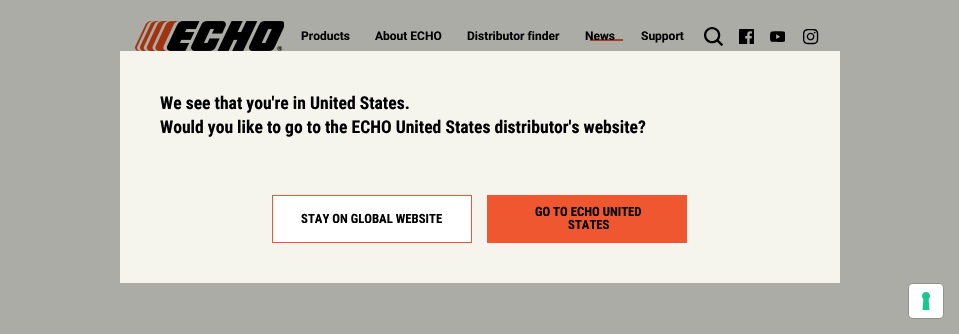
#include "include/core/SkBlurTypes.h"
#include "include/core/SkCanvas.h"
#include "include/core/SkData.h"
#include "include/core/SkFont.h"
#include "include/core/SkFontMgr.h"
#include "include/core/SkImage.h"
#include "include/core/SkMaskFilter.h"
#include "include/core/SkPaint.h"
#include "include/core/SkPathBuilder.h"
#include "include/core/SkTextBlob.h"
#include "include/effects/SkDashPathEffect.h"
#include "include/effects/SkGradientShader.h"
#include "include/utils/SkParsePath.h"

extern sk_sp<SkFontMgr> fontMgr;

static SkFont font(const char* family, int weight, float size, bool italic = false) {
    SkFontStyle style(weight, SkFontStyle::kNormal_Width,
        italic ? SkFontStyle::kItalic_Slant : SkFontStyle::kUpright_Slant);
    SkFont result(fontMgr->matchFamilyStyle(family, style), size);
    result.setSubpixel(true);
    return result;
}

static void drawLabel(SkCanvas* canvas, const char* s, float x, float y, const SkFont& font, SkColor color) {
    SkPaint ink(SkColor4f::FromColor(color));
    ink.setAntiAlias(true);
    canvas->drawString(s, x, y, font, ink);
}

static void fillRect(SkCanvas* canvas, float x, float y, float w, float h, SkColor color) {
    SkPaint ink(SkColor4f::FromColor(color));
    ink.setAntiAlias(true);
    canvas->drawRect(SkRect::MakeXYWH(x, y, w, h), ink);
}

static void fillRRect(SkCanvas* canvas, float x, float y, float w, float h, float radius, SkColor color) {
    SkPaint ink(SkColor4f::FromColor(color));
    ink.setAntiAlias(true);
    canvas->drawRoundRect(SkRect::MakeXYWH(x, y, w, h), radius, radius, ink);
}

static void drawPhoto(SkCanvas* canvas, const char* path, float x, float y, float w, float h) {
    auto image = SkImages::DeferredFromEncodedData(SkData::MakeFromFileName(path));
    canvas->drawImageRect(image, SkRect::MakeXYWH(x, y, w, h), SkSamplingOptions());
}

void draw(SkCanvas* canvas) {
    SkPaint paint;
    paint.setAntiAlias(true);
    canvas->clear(0xFFACACA7);
    drawPhoto(canvas, "assets/img1.png", 135, 21, 149, 30);
    SkFont font1 = font("Roboto", 700, 12);
    drawLabel(canvas, "Products", 301, 40, font1, 0xFF000000);
    drawLabel(canvas, "About ECHO", 375, 40, font1, 0xFF000000);
    drawLabel(canvas, "Distributor finder", 467, 40, font1, 0xFF000000);
    fillRect(canvas, 590, 39, 33, 2, 0xFFA73D22);
    drawLabel(canvas, "News", 585, 40, font1, 0xFF000000);
    drawLabel(canvas, "Support", 641, 40, font1, 0xFF000000);
    drawPhoto(canvas, "assets/img2.png", 704, 27, 19, 19);
    drawPhoto(canvas, "assets/img3.png", 739, 29, 15, 15);
    drawPhoto(canvas, "assets/img4.png", 770, 31, 15, 12);
    drawPhoto(canvas, "assets/img5.png", 802, 29, 17, 16);
    fillRect(canvas, 120, 51, 720, 232, 0xFFF5F5EE);
    SkFont font2 = font("Roboto Condensed", 700, 17.6f);
    drawLabel(canvas, "We see that you're in United States.", 160, 109, font2, 0xFF000000);
    drawLabel(canvas, "Would you like to go to the ECHO United States distributor's website?", 160, 133, font2, 0xFF000000);
    paint.setColor(0xFFFFFFFF);
    canvas->drawRect(SkRect::MakeXYWH(272.5f, 195.5f, 199, 47), paint);
    paint.setStroke(true);
    paint.setStrokeWidth(1);
    paint.setColor(0xFFEE5730);
    canvas->drawRect(SkRect::MakeXYWH(272.5f, 195.5f, 199, 47), paint);
    SkFont font3 = font("Roboto Condensed", 700, 12.75f);
    drawLabel(canvas, "STAY ON GLOBAL WEBSITE", 301, 223, font3, 0xFF000000);
    fillRect(canvas, 487, 195, 200, 48, 0xFFEE5730);
    drawLabel(canvas, "GO TO ECHO UNITED", 535, 216, font3, 0xFF000000);
    drawLabel(canvas, "STATES", 568, 229, font3, 0xFF000000);
    paint.setColor(0xFF92928E);
    canvas->drawRoundRect(SkRect::MakeXYWH(908.5f, 283.5f, 35, 35), 4.5f, 4.5f, paint);
    fillRRect(canvas, 909, 284, 34, 34, 4, 0xFFFFFFFF);
    drawPhoto(canvas, "assets/img6.png", 922, 292, 8, 18);
}
